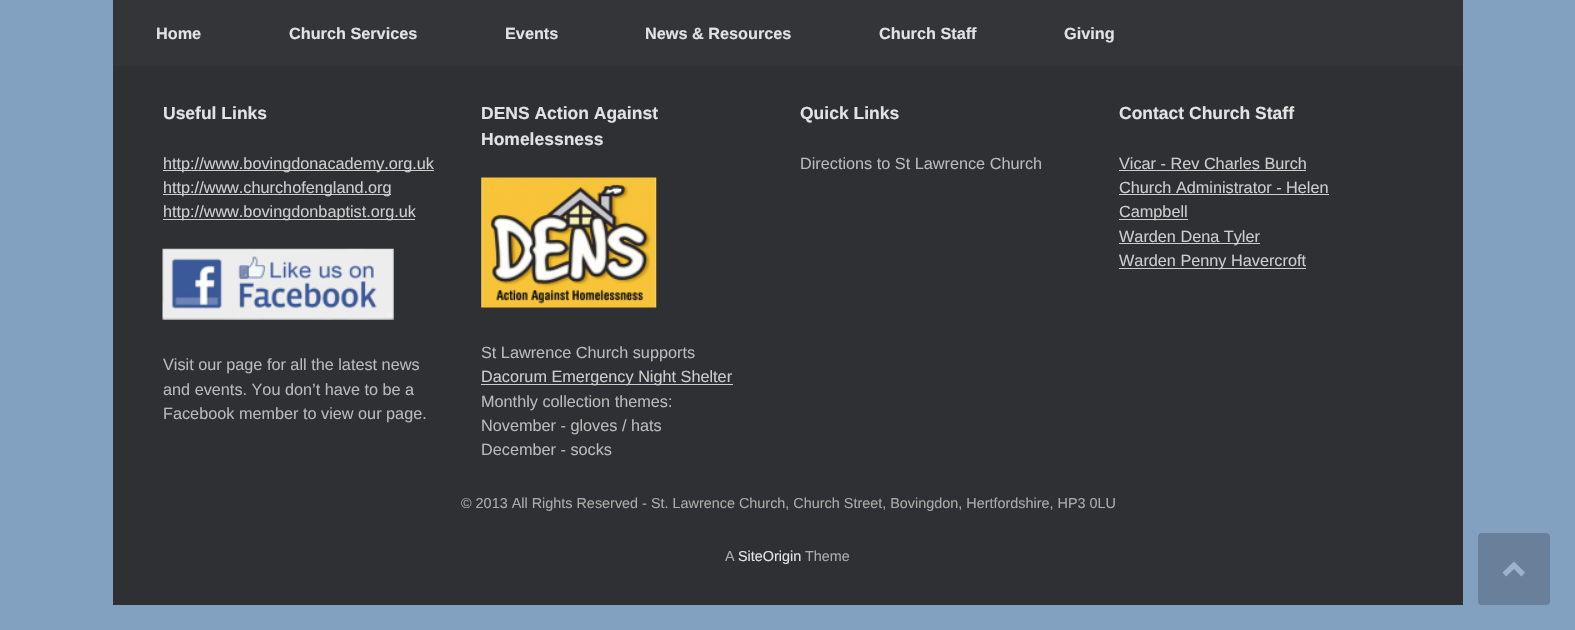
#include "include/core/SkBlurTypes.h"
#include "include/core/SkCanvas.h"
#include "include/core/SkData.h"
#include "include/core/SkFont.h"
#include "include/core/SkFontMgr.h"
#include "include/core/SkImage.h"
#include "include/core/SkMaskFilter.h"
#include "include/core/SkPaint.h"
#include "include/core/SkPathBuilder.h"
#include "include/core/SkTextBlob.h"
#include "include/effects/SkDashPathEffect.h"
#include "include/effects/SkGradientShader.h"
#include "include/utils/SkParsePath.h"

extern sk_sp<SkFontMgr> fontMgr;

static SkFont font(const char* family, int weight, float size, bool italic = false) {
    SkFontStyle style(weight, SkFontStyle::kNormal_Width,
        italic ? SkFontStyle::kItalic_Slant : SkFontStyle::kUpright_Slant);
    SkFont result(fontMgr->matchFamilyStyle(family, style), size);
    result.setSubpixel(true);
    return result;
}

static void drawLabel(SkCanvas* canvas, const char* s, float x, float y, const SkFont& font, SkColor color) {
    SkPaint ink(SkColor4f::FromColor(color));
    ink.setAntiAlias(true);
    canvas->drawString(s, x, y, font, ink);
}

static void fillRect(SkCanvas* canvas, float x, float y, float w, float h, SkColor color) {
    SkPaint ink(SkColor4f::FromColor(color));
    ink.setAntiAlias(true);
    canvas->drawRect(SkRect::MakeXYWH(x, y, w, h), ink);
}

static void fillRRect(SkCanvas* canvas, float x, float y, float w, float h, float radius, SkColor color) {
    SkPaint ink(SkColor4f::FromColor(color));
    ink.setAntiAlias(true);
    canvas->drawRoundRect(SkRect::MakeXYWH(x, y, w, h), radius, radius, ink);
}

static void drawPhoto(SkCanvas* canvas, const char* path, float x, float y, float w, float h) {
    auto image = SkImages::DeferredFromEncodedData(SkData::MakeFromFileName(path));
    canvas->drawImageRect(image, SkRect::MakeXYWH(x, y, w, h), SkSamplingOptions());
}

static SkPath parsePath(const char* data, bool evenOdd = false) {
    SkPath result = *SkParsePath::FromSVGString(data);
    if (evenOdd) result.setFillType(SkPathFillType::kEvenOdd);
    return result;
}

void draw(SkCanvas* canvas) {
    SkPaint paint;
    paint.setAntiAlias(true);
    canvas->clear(0xFF82A0BF);
    fillRect(canvas, 113, 0, 1350, 66, 0xFF343538);
    SkFont font1 = font("Liberation Sans", 700, 16.25f);
    drawLabel(canvas, "Home", 156, 39, font1, 0xFFE2E2E2);
    drawLabel(canvas, "Church Services", 289, 39, font1, 0xFFE2E2E2);
    drawLabel(canvas, "Events", 505, 39, font1, 0xFFE2E2E2);
    drawLabel(canvas, "News & Resources", 645, 39, font1, 0xFFE2E2E2);
    drawLabel(canvas, "Church Staff", 879, 39, font1, 0xFFE2E2E2);
    drawLabel(canvas, "Giving", 1064, 39, font1, 0xFFE2E2E2);
    fillRect(canvas, 113, 66, 1350, 539, 0xFF2F3033);
    SkFont font2 = font("Liberation Sans", 700, 17.5f);
    drawLabel(canvas, "Useful Links", 163, 119, font2, 0xFFE2E2E2);
    fillRect(canvas, 163, 170, 271, 1, 0xFFCCCCCC);
    SkFont font3 = font("Liberation Sans", 400, 16.25f);
    drawLabel(canvas, "http://www.bovingdonacademy.org.uk", 163, 169, font3, 0xFFCCCCCC);
    fillRect(canvas, 163, 194, 228, 1, 0xFFCCCCCC);
    drawLabel(canvas, "http://www.churchofengland.org", 163, 193, font3, 0xFFCCCCCC);
    fillRect(canvas, 163, 219, 252, 1, 0xFFCCCCCC);
    drawLabel(canvas, "http://www.bovingdonbaptist.org.uk", 163, 217, font3, 0xFFCCCCCC);
    drawPhoto(canvas, "assets/img1.png", 162, 248, 232, 72);
    drawLabel(canvas, "Visit our page for all the latest news", 163, 370, font3, 0xFFB9B9B9);
    drawLabel(canvas, "and events. You don’t have to be a", 163, 395, font3, 0xFFB9B9B9);
    drawLabel(canvas, "Facebook member to view our page.", 163, 419, font3, 0xFFB9B9B9);
    drawLabel(canvas, "DENS Action Against", 481, 119, font2, 0xFFE2E2E2);
    drawLabel(canvas, "Homelessness", 481, 145, font2, 0xFFE2E2E2);
    drawPhoto(canvas, "assets/img2.png", 481, 177, 176, 131);
    drawLabel(canvas, "St Lawrence Church supports", 481, 358, font3, 0xFFB9B9B9);
    fillRect(canvas, 481, 384, 252, 1, 0xFFCCCCCC);
    drawLabel(canvas, "Dacorum Emergency Night Shelter", 481, 382, font3, 0xFFCCCCCC);
    drawLabel(canvas, "Monthly collection themes:", 481, 407, font3, 0xFFB9B9B9);
    drawLabel(canvas, "November - gloves / hats", 481, 431, font3, 0xFFB9B9B9);
    drawLabel(canvas, "December - socks", 481, 455, font3, 0xFFB9B9B9);
    drawLabel(canvas, "Quick Links", 800, 119, font2, 0xFFE2E2E2);
    drawLabel(canvas, "Directions to St Lawrence Church", 800, 169, font3, 0xFFB9B9B9);
    drawLabel(canvas, "Contact Church Staff", 1119, 119, font2, 0xFFE2E2E2);
    drawLabel(canvas, "Vicar - Rev Charles Burch", 1119, 169, font3, 0xFFCCCCCC);
    fillRect(canvas, 1119, 170, 187, 1, 0xFFCCCCCC);
    drawLabel(canvas, "Church Administrator - Helen", 1119, 193, font3, 0xFFCCCCCC);
    fillRect(canvas, 1119, 194, 210, 1, 0xFFCCCCCC);
    fillRect(canvas, 1119, 219, 69, 1, 0xFFCCCCCC);
    drawLabel(canvas, "Campbell", 1119, 217, font3, 0xFFCCCCCC);
    fillRect(canvas, 1119, 243, 141, 1, 0xFFCCCCCC);
    drawLabel(canvas, "Warden Dena Tyler", 1119, 242, font3, 0xFFCCCCCC);
    fillRect(canvas, 1119, 268, 187, 1, 0xFFCCCCCC);
    drawLabel(canvas, "Warden Penny Havercroft", 1119, 266, font3, 0xFFCCCCCC);
    SkFont font4 = font("Liberation Sans", 400, 14.4f);
    drawLabel(canvas, "© 2013 All Rights Reserved - St. Lawrence Church, Church Street, Bovingdon, Hertfordshire, HP3 0LU", 461, 508, font4, 0xFFAAAAAA);
    drawLabel(canvas, "A", 725, 561, font4, 0xFFAAAAAA);
    drawLabel(canvas, "SiteOrigin", 738, 561, font4, 0xFFE2E2E2);
    drawLabel(canvas, "Theme", 805, 561, font4, 0xFFAAAAAA);
    fillRRect(canvas, 1478, 533, 72, 72, 4, 0xFF688099);
    paint.setColor(0xFF9BB3CC);
    canvas->drawPath(parsePath("M1525 572.5L1514 561.5L1502.5 572.5L1506 576.5L1514 569L1521.5 576.5Z"), paint);
}
